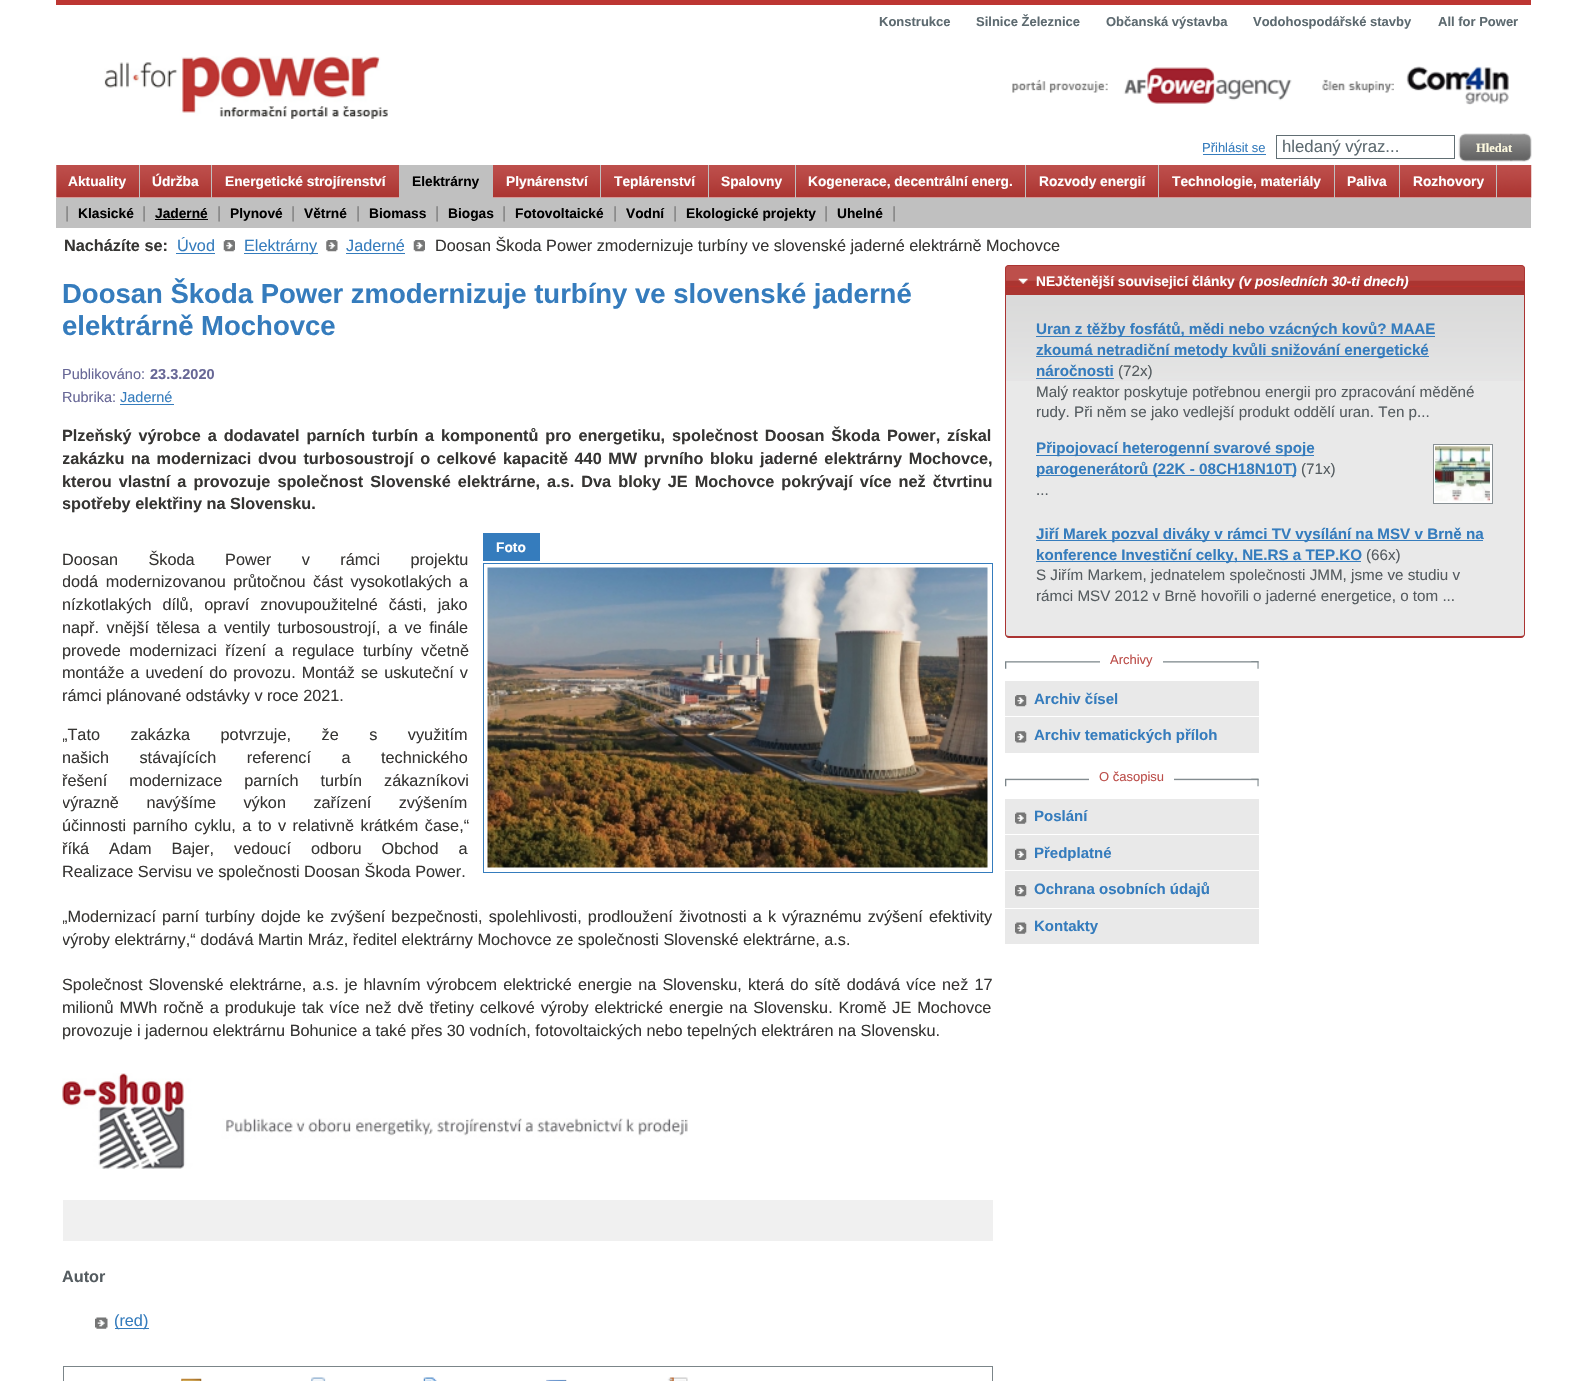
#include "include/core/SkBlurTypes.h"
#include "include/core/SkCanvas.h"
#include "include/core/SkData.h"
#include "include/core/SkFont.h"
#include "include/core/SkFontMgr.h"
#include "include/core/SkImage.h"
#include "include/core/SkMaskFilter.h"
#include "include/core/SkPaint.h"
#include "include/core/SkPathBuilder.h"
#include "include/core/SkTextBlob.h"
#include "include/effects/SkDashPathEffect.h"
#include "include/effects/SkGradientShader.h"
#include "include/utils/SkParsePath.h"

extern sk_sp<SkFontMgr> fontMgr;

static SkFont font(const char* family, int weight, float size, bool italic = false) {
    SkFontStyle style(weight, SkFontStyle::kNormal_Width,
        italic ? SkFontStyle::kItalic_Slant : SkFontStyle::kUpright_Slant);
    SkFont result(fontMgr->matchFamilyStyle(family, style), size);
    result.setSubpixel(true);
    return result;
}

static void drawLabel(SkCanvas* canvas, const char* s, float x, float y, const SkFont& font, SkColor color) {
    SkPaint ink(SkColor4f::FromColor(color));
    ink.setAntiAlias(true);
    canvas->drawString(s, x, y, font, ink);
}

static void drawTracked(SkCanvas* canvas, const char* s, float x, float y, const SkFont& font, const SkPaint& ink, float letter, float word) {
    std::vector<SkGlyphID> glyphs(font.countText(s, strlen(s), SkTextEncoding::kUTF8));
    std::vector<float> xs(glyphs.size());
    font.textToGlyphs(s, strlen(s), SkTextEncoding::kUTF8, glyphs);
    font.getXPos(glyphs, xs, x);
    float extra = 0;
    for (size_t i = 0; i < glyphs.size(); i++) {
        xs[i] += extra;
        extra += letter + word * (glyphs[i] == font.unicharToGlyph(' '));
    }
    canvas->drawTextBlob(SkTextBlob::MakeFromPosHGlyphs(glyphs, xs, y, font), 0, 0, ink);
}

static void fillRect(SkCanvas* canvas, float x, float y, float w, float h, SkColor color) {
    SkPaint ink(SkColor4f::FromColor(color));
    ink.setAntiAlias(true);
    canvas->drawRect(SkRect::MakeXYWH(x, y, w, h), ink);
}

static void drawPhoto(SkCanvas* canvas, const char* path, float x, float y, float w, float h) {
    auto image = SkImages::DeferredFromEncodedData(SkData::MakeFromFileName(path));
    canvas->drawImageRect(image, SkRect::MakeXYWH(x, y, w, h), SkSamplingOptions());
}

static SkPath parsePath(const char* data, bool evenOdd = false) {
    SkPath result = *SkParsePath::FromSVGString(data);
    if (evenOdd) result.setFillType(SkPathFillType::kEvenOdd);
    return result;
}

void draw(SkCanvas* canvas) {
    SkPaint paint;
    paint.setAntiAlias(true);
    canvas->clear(0xFFFFFFFF);
    fillRect(canvas, 56, 0, 1475, 5, 0xFFBD3632);
    SkFont font1 = font("Liberation Sans", 700, 13);
    drawLabel(canvas, "Konstrukce", 879, 26, font1, 0xFF5D6A70);
    drawLabel(canvas, "Silnice Železnice", 976, 26, font1, 0xFF5D6A70);
    drawLabel(canvas, "Občanská výstavba", 1106, 26, font1, 0xFF5D6A70);
    drawLabel(canvas, "Vodohospodářské stavby", 1253, 26, font1, 0xFF5D6A70);
    drawLabel(canvas, "All for Power", 1438, 26, font1, 0xFF5D6A70);
    drawPhoto(canvas, "assets/img1.png", 104, 56, 284, 63);
    drawPhoto(canvas, "assets/img2.png", 1012, 67, 280, 37);
    drawPhoto(canvas, "assets/img3.png", 1322, 66, 187, 39);
    SkFont font2 = font("Liberation Sans", 400, 13);
    drawLabel(canvas, "Přihlásit se", 1202, 152, font2, 0xFF357CBD);
    fillRect(canvas, 1203, 154, 63, 1, 0xFF357CBD);
    paint.setStroke(true);
    paint.setStrokeWidth(1);
    paint.setColor(0xFF616E73);
    canvas->drawRect(SkRect::MakeXYWH(1276.5f, 135.5f, 178, 23), paint);
    SkFont font3 = font("Liberation Sans", 400, 16.75f);
    drawLabel(canvas, "hledaný výraz...", 1282, 152, font3, 0xFF5D6A70);
    drawPhoto(canvas, "assets/img4.png", 1458, 133, 74, 29);
    SkFont font4 = font("Liberation Serif", 700, 12.5f);
    drawLabel(canvas, "Hledat", 1476, 152, font4, 0xFFFEFAE0);
    drawPhoto(canvas, "assets/img5.png", 56, 165, 1476, 33);
    fillRect(canvas, 139, 165, 1, 33, 0xFFC0C0C0);
    SkFont font5 = font("Liberation Sans", 700, 13.75f);
    drawLabel(canvas, "Aktuality", 68, 186, font5, 0xFFFFFFFF);
    fillRect(canvas, 211, 165, 1, 33, 0xFFC0C0C0);
    drawLabel(canvas, "Údržba", 152, 186, font5, 0xFFFFFFFF);
    fillRect(canvas, 399, 165, 94, 33, 0xFFC0C0C0);
    drawLabel(canvas, "Energetické strojírenství", 225, 186, font5, 0xFFFFFFFF);
    drawLabel(canvas, "Elektrárny", 412, 186, font5, 0xFF000000);
    fillRect(canvas, 600, 165, 1, 33, 0xFFC0C0C0);
    drawLabel(canvas, "Plynárenství", 506, 186, font5, 0xFFFFFFFF);
    fillRect(canvas, 708, 165, 1, 33, 0xFFC0C0C0);
    drawLabel(canvas, "Teplárenství", 614, 186, font5, 0xFFFFFFFF);
    fillRect(canvas, 795, 165, 1, 33, 0xFFC0C0C0);
    drawLabel(canvas, "Spalovny", 721, 186, font5, 0xFFFFFFFF);
    fillRect(canvas, 1025, 165, 1, 33, 0xFFC0C0C0);
    drawLabel(canvas, "Kogenerace, decentrální energ.", 808, 186, font5, 0xFFFFFFFF);
    fillRect(canvas, 1158, 165, 1, 33, 0xFFC0C0C0);
    drawLabel(canvas, "Rozvody energií", 1039, 186, font5, 0xFFFFFFFF);
    fillRect(canvas, 1334, 165, 1, 33, 0xFFC0C0C0);
    drawLabel(canvas, "Technologie, materiály", 1172, 186, font5, 0xFFFFFFFF);
    fillRect(canvas, 1399, 165, 1, 33, 0xFFC0C0C0);
    drawLabel(canvas, "Paliva", 1347, 186, font5, 0xFFFFFFFF);
    fillRect(canvas, 1496, 165, 1, 33, 0xFFC0C0C0);
    drawLabel(canvas, "Rozhovory", 1413, 186, font5, 0xFFFFFFFF);
    fillRect(canvas, 56, 198, 1475, 30, 0xFFC0C0C0);
    SkFont font6 = font("Liberation Sans", 400, 16.25f);
    drawLabel(canvas, "|", 65, 218, font6, 0xFF808080);
    drawLabel(canvas, "Klasické", 78, 218, font5, 0xFF000000);
    drawLabel(canvas, "|", 142, 218, font6, 0xFF808080);
    drawLabel(canvas, "Jaderné", 155, 218, font5, 0xFF000000);
    fillRect(canvas, 155, 219, 53, 1, 0xFF000000);
    drawLabel(canvas, "|", 217, 218, font6, 0xFF808080);
    drawLabel(canvas, "Plynové", 230, 218, font5, 0xFF000000);
    drawLabel(canvas, "|", 291, 218, font6, 0xFF808080);
    drawLabel(canvas, "Větrné", 304, 218, font5, 0xFF000000);
    drawLabel(canvas, "|", 356, 218, font6, 0xFF808080);
    drawLabel(canvas, "Biomass", 369, 218, font5, 0xFF000000);
    drawLabel(canvas, "|", 435, 218, font6, 0xFF808080);
    drawLabel(canvas, "Biogas", 448, 218, font5, 0xFF000000);
    drawLabel(canvas, "|", 502, 218, font6, 0xFF808080);
    drawLabel(canvas, "Fotovoltaické", 515, 218, font5, 0xFF000000);
    drawLabel(canvas, "|", 613, 218, font6, 0xFF808080);
    drawLabel(canvas, "Vodní", 626, 218, font5, 0xFF000000);
    drawLabel(canvas, "|", 673, 218, font6, 0xFF808080);
    drawLabel(canvas, "Ekologické projekty", 686, 218, font5, 0xFF000000);
    drawLabel(canvas, "|", 824, 218, font6, 0xFF808080);
    drawLabel(canvas, "Uhelné", 837, 218, font5, 0xFF000000);
    drawLabel(canvas, "|", 892, 218, font6, 0xFF808080);
    SkFont font7 = font("Liberation Sans", 700, 16.25f);
    drawLabel(canvas, "Nacházíte se:", 64, 251, font7, 0xFF363533);
    drawLabel(canvas, "Úvod", 177, 251, font6, 0xFF357CBD);
    fillRect(canvas, 176, 253, 39, 1, 0xFF357CBD);
    drawPhoto(canvas, "assets/img6.png", 223, 240, 12, 12);
    fillRect(canvas, 244, 253, 74, 1, 0xFF357CBD);
    drawLabel(canvas, "Elektrárny", 244, 251, font6, 0xFF357CBD);
    drawPhoto(canvas, "assets/img7.png", 326, 240, 12, 12);
    drawLabel(canvas, "Jaderné", 346, 251, font6, 0xFF357CBD);
    fillRect(canvas, 346, 253, 59, 1, 0xFF357CBD);
    drawPhoto(canvas, "assets/img6.png", 413, 240, 12, 12);
    drawLabel(canvas, "Doosan Škoda Power zmodernizuje turbíny ve slovenské jaderné elektrárně Mochovce", 435, 251, font6, 0xFF363533);
    SkFont font8 = font("Liberation Sans", 700, 27.5f);
    drawLabel(canvas, "Doosan Škoda Power zmodernizuje turbíny ve slovenské jaderné", 62, 303, font8, 0xFF357CBD);
    drawLabel(canvas, "elektrárně Mochovce", 62, 335, font8, 0xFF357CBD);
    SkFont font9 = font("Liberation Sans", 400, 14.5f);
    drawLabel(canvas, "Publikováno:", 62, 379, font9, 0xFF676796);
    SkFont font10 = font("Liberation Sans", 700, 14.5f);
    drawLabel(canvas, "23.3.2020", 150, 379, font10, 0xFF676796);
    drawLabel(canvas, "Rubrika:", 62, 402, font9, 0xFF676796);
    drawLabel(canvas, "Jaderné", 120, 402, font9, 0xFF357CBD);
    fillRect(canvas, 120, 404, 54, 1, 0xFF357CBD);
    paint.setStroke(false);
    paint.setColor(0xFF363533);
    drawTracked(canvas, "Plzeňský výrobce a dodavatel parních turbín a komponentů pro energetiku, společnost Doosan Škoda Power, získal", 62, 441, font7, paint, 0, 2.4f);
    canvas->save();
    canvas->clipRect(SkRect::MakeXYWH(63, 409, 930, 124));
    drawTracked(canvas, "zakázku na modernizaci dvou turbosoustrojí o celkové kapacitě 440 MW prvního bloku jaderné elektrárny Mochovce,", 62, 464, font7, paint, 0, 2.1f);
    canvas->restore();
    drawTracked(canvas, "kterou vlastní a provozuje společnost Slovenské elektrárne, a.s. Dva bloky JE Mochovce pokrývají více než čtvrtinu", 62, 487, font7, paint, 0, 2.6f);
    canvas->save();
    canvas->clipRect(SkRect::MakeXYWH(63, 409, 930, 124));
    drawLabel(canvas, "spotřeby elektřiny na Slovensku.", 62, 509, font7, 0xFF363533);
    canvas->restore();
    fillRect(canvas, 483, 533, 57, 28, 0xFF357CBD);
    drawLabel(canvas, "Foto", 496, 552, font5, 0xFFFFFFFF);
    paint.setStroke(true);
    paint.setColor(0xFF357CBD);
    canvas->drawRect(SkRect::MakeXYWH(483.5f, 563.5f, 509, 309), paint);
    drawPhoto(canvas, "assets/img8.png", 487, 567, 501, 301);
    paint.setStroke(false);
    paint.setColor(0xFF363533);
    drawTracked(canvas, "Doosan Škoda Power v rámci projektu", 62, 565, font6, paint, 0, 26);
    canvas->save();
    canvas->clipRect(SkRect::MakeXYWH(63, 533, 930, 526));
    drawTracked(canvas, "dodá modernizovanou průtočnou část vysokotlakých a", 62, 587, font6, paint, 0, 3);
    canvas->restore();
    drawTracked(canvas, "nízkotlakých dílů, opraví znovupoužitelné části, jako", 62, 610, font6, paint, 0, 6.5f);
    drawTracked(canvas, "např. vnější tělesa a ventily turbosoustrojí, a ve finále", 62, 633, font6, paint, 0, 3);
    drawTracked(canvas, "provede modernizaci řízení a regulace turbíny včetně", 62, 656, font6, paint, 0, 4);
    drawTracked(canvas, "montáže a uvedení do provozu. Montáž se uskuteční v", 62, 678, font6, paint, 0, 1.5f);
    drawLabel(canvas, "rámci plánované odstávky v roce 2021.", 62, 701, font6, 0xFF363533);
    canvas->save();
    canvas->clipRect(SkRect::MakeXYWH(63, 533, 930, 526));
    drawTracked(canvas, "„Tato zakázka potvrzuje, že s využitím", 62, 740, font6, paint, 0, 26);
    canvas->restore();
    drawTracked(canvas, "našich stávajících referencí a technického", 62, 763, font6, paint, 0, 26);
    drawTracked(canvas, "řešení modernizace parních turbín zákazníkovi", 62, 786, font6, paint, 0, 17.5f);
    canvas->save();
    canvas->clipRect(SkRect::MakeXYWH(63, 533, 930, 526));
    drawTracked(canvas, "výrazně navýšíme výkon zařízení zvýšením", 62, 808, font6, paint, 0, 23);
    canvas->restore();
    drawTracked(canvas, "účinnosti parního cyklu, a to v relativně krátkém čase,“", 62, 831, font6, paint, 0, 2);
    drawTracked(canvas, "říká Adam Bajer, vedoucí odboru Obchod a", 62, 854, font6, paint, 0, 15.5f);
    drawLabel(canvas, "Realizace Servisu ve společnosti Doosan Škoda Power.", 62, 877, font6, 0xFF363533);
    canvas->save();
    canvas->clipRect(SkRect::MakeXYWH(63, 533, 930, 526));
    drawTracked(canvas, "„Modernizací parní turbíny dojde ke zvýšení bezpečnosti, spolehlivosti, prodloužení životnosti a k výraznému zvýšení efektivity", 62, 922, font6, paint, 0, 1.6f);
    drawLabel(canvas, "výroby elektrárny,“ dodává Martin Mráz, ředitel elektrárny Mochovce ze společnosti Slovenské elektrárne, a.s.", 62, 945, font6, 0xFF363533);
    canvas->restore();
    drawTracked(canvas, "Společnost Slovenské elektrárne, a.s. je hlavním výrobcem elektrické energie na Slovensku, která do sítě dodává více než 17", 62, 990, font6, paint, 0, 1.6f);
    drawTracked(canvas, "milionů MWh ročně a produkuje tak více než dvě třetiny celkové výroby elektrické energie na Slovensku. Kromě JE Mochovce", 62, 1013, font6, paint, 0, 1.4f);
    drawLabel(canvas, "provozuje i jadernou elektrárnu Bohunice a také přes 30 vodních, fotovoltaických nebo tepelných elektráren na Slovensku.", 62, 1036, font6, 0xFF363533);
    drawPhoto(canvas, "assets/img9.png", 62, 1073, 626, 96);
    fillRect(canvas, 63, 1200, 930, 41, 0xFFF0F0F0);
    drawLabel(canvas, "Autor", 62, 1282, font7, 0xFF555C60);
    drawPhoto(canvas, "assets/img10.png", 95, 1317, 13, 12);
    fillRect(canvas, 115, 1328, 34, 1, 0xFF357CBD);
    drawLabel(canvas, "(red)", 114, 1326, font6, 0xFF357CBD);
    paint.setStroke(true);
    paint.setColor(0xFF7B8589);
    canvas->drawRect(SkRect::MakeXYWH(63.5f, 1366.5f, 929, 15), paint);
    drawPhoto(canvas, "assets/img11.png", 181, 1378, 21, 3);
    drawPhoto(canvas, "assets/img12.png", 311, 1377, 15, 4);
    drawPhoto(canvas, "assets/img13.png", 423, 1377, 14, 4);
    drawPhoto(canvas, "assets/img14.png", 546, 1379, 21, 2);
    drawPhoto(canvas, "assets/img15.png", 667, 1377, 21, 4);
    drawPhoto(canvas, "assets/img16.png", 1005, 265, 520, 30);
    paint.setColor(0xFFAB3432);
    canvas->drawPath(parsePath("M1009 265.5H1521C1523 265.5 1524.5 267 1524.5 269V295.5H1005.5V269C1005.5 267 1007 265.5 1009 265.5Z"), paint);
    drawPhoto(canvas, "assets/img17.png", 1018, 278, 10, 6);
    drawLabel(canvas, "NEJčtenější souvisejicí články", 1036, 286, font5, 0xFFFFFFFF);
    SkFont font11 = font("Liberation Sans", 700, 13.75f, true);
    drawLabel(canvas, "(v posledních 30-ti dnech)", 1239, 286, font11, 0xFFFFFFFF);
    paint.setStroke(false);
    paint.setColor(0xFFE9E9E9);
    canvas->drawPath(parsePath("M1005 295H1525V634C1525 636 1523 638 1521 638H1009C1007 638 1005 636 1005 634Z"), paint);
    drawPhoto(canvas, "assets/img18.png", 1006, 295, 518, 86);
    paint.setColor(0xFFAB3432);
    canvas->drawPath(parsePath("M1005 295H1525V634C1525 636 1523 638 1521 638H1009C1007 638 1005 636 1005 634ZM1006 295H1524V634C1524 635 1523 636 1521 636H1009C1007 636 1006 635 1006 634Z", true), paint);
    fillRect(canvas, 1036, 336, 399, 1, 0xFF357CBD);
    SkFont font12 = font("Liberation Sans", 700, 15.2f);
    drawLabel(canvas, "Uran z těžby fosfátů, mědi nebo vzácných kovů? MAAE", 1036, 334, font12, 0xFF357CBD);
    fillRect(canvas, 1036, 356, 393, 1, 0xFF357CBD);
    drawLabel(canvas, "zkoumá netradiční metody kvůli snižování energetické", 1036, 355, font12, 0xFF357CBD);
    drawLabel(canvas, "náročnosti", 1036, 376, font12, 0xFF357CBD);
    fillRect(canvas, 1036, 378, 78, 1, 0xFF357CBD);
    SkFont font13 = font("Liberation Sans", 400, 15.2f);
    drawLabel(canvas, "(72x)", 1118, 376, font13, 0xFF555C60);
    drawLabel(canvas, "Malý reaktor poskytuje potřebnou energii pro zpracování měděné", 1036, 397, font13, 0xFF555C60);
    drawLabel(canvas, "rudy. Při něm se jako vedlejší produkt oddělí uran. Ten p...", 1036, 417, font13, 0xFF555C60);
    fillRect(canvas, 1036, 455, 278, 1, 0xFF357CBD);
    drawLabel(canvas, "Připojovací heterogenní svarové spoje", 1036, 453, font12, 0xFF357CBD);
    paint.setColor(0xFFFFFFFF);
    canvas->drawRect(SkRect::MakeXYWH(1433.5f, 444.5f, 59, 59), paint);
    paint.setStroke(true);
    paint.setColor(0xFF889094);
    canvas->drawRect(SkRect::MakeXYWH(1433.5f, 444.5f, 59, 59), paint);
    drawPhoto(canvas, "assets/img19.png", 1435, 446, 55, 56);
    fillRect(canvas, 1036, 475, 260, 1, 0xFF357CBD);
    drawLabel(canvas, "parogenerátorů (22K - 08CH18N10T)", 1036, 474, font12, 0xFF357CBD);
    drawLabel(canvas, "(71x)", 1301, 474, font13, 0xFF555C60);
    drawLabel(canvas, "...", 1036, 495, font13, 0xFF555C60);
    fillRect(canvas, 1036, 540, 447, 1, 0xFF357CBD);
    drawLabel(canvas, "Jiří Marek pozval diváky v rámci TV vysílání na MSV v Brně na", 1036, 539, font12, 0xFF357CBD);
    fillRect(canvas, 1036, 561, 325, 1, 0xFF357CBD);
    drawLabel(canvas, "konference Investiční celky, NE.RS a TEP.KO", 1036, 560, font12, 0xFF357CBD);
    drawLabel(canvas, "(66x)", 1366, 560, font13, 0xFF555C60);
    drawLabel(canvas, "S Jiřím Markem, jednatelem společnosti JMM, jsme ve studiu v", 1036, 580, font13, 0xFF555C60);
    drawLabel(canvas, "rámci MSV 2012 v Brně hovořili o jaderné energetice, o tom ...", 1036, 601, font13, 0xFF555C60);
    drawPhoto(canvas, "assets/img20.png", 1005, 661, 254, 8);
    drawPhoto(canvas, "assets/img21.png", 1251, 661, 8, 8);
    fillRect(canvas, 1100, 661, 63, 2, 0xFFFFFFFF);
    drawLabel(canvas, "Archivy", 1110, 664, font2, 0xFFBC4E4A);
    fillRect(canvas, 1005, 681, 254, 72, 0xFFE9E9E9);
    drawPhoto(canvas, "assets/img22.png", 1015, 695, 12, 12);
    fillRect(canvas, 1005, 716, 254, 1, 0xFFFFFFFF);
    SkFont font14 = font("Liberation Sans", 700, 15);
    drawLabel(canvas, "Archiv čísel", 1034, 704, font14, 0xFF357CBD);
    drawPhoto(canvas, "assets/img23.png", 1015, 731, 12, 12);
    drawLabel(canvas, "Archiv tematických příloh", 1034, 740, font14, 0xFF357CBD);
    drawPhoto(canvas, "assets/img24.png", 1005, 778, 254, 9);
    drawPhoto(canvas, "assets/img25.png", 1251, 778, 8, 9);
    fillRect(canvas, 1089, 778, 85, 3, 0xFFFFFFFF);
    drawLabel(canvas, "O časopisu", 1099, 781, font2, 0xFFBC4E4A);
    fillRect(canvas, 1005, 799, 254, 145, 0xFFE9E9E9);
    drawPhoto(canvas, "assets/img26.png", 1015, 812, 12, 12);
    fillRect(canvas, 1005, 834, 254, 1, 0xFFFFFFFF);
    drawLabel(canvas, "Poslání", 1034, 821, font14, 0xFF357CBD);
    drawPhoto(canvas, "assets/img27.png", 1015, 848, 12, 12);
    fillRect(canvas, 1005, 870, 254, 1, 0xFFFFFFFF);
    drawLabel(canvas, "Předplatné", 1034, 858, font14, 0xFF357CBD);
    drawPhoto(canvas, "assets/img22.png", 1015, 885, 12, 12);
    fillRect(canvas, 1005, 908, 254, 1, 0xFFFFFFFF);
    drawLabel(canvas, "Ochrana osobních údajů", 1034, 894, font14, 0xFF357CBD);
    drawPhoto(canvas, "assets/img26.png", 1015, 922, 12, 12);
    drawLabel(canvas, "Kontakty", 1034, 931, font14, 0xFF357CBD);
}
